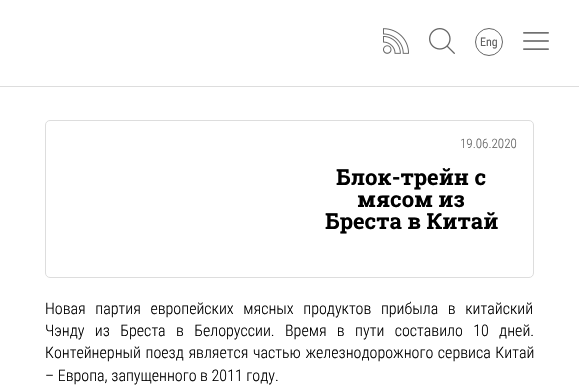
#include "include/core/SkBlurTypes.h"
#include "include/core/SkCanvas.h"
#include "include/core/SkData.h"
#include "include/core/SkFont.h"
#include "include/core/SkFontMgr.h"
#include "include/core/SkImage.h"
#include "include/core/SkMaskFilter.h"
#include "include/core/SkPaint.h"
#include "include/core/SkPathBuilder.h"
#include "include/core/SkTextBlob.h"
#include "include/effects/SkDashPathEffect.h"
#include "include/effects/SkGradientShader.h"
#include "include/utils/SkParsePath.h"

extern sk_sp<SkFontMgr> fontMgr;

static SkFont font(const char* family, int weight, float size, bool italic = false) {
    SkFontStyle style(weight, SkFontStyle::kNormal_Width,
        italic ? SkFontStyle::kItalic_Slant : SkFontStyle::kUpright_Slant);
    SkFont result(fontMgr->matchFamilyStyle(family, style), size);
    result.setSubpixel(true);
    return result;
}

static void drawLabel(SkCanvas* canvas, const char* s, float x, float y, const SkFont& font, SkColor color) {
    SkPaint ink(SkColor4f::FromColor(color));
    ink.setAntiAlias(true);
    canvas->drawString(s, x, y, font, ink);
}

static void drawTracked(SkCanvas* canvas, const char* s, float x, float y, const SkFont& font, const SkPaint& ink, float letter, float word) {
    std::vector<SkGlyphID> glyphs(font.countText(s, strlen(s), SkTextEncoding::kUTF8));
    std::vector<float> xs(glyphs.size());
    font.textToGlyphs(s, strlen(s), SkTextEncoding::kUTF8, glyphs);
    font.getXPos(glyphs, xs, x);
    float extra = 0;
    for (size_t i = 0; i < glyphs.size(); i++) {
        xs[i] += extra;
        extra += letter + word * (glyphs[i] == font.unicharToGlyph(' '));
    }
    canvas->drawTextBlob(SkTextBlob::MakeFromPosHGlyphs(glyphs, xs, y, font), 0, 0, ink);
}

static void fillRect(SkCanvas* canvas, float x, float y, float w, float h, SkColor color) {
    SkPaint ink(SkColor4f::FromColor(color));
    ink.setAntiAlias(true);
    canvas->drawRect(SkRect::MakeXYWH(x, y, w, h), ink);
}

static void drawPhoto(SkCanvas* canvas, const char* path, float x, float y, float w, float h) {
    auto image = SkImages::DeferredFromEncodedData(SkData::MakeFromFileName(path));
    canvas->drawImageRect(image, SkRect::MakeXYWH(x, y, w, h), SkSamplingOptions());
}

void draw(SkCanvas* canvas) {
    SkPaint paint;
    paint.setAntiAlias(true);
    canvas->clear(0xFFFFFFFF);
    fillRect(canvas, 0, 86, 579, 1, 0xFFDDDDDD);
    drawPhoto(canvas, "assets/img1.png", 383, 28, 26, 26);
    drawPhoto(canvas, "assets/img2.png", 429, 28, 26, 26);
    paint.setStroke(true);
    paint.setStrokeWidth(1);
    paint.setColor(0xFF666666);
    canvas->drawCircle(489, 42, 13.5f, paint);
    SkFont font1 = font("Roboto Condensed", 400, 12);
    drawLabel(canvas, "Eng", 480, 46, font1, 0xFF616161);
    drawPhoto(canvas, "assets/img3.png", 523, 32, 26, 18);
    paint.setColor(0xFFDDDDDD);
    canvas->drawRoundRect(SkRect::MakeXYWH(45.5f, 120.5f, 488, 157), 4.5f, 4.5f, paint);
    SkFont font2 = font("Roboto Condensed", 300, 13);
    drawLabel(canvas, "19.06.2020", 460, 148, font2, 0xFF616161);
    SkFont font3 = font("Roboto Slab", 700, 22);
    drawLabel(canvas, "Блок-трейн с", 336, 185, font3, 0xFF000000);
    drawLabel(canvas, "мясом из", 357, 207, font3, 0xFF000000);
    drawLabel(canvas, "Бреста в Китай", 325, 229, font3, 0xFF000000);
    SkFont font4 = font("Roboto Condensed", 300, 16);
    paint.setStroke(false);
    paint.setColor(0xFF000000);
    drawTracked(canvas, "Новая партия европейских мясных продуктов прибыла в китайский", 45, 314, font4, paint, 0, 6);
    drawTracked(canvas, "Чэнду из Бреста в Белоруссии. Время в пути составило 10 дней.", 45, 336, font4, paint, 0, 6.75f);
    drawTracked(canvas, "Контейнерный поезд является частью железнодорожного сервиса Китай", 45, 358, font4, paint, 0, 1);
    drawLabel(canvas, "– Европа, запущенного в 2011 году.", 45, 381, font4, 0xFF000000);
}
